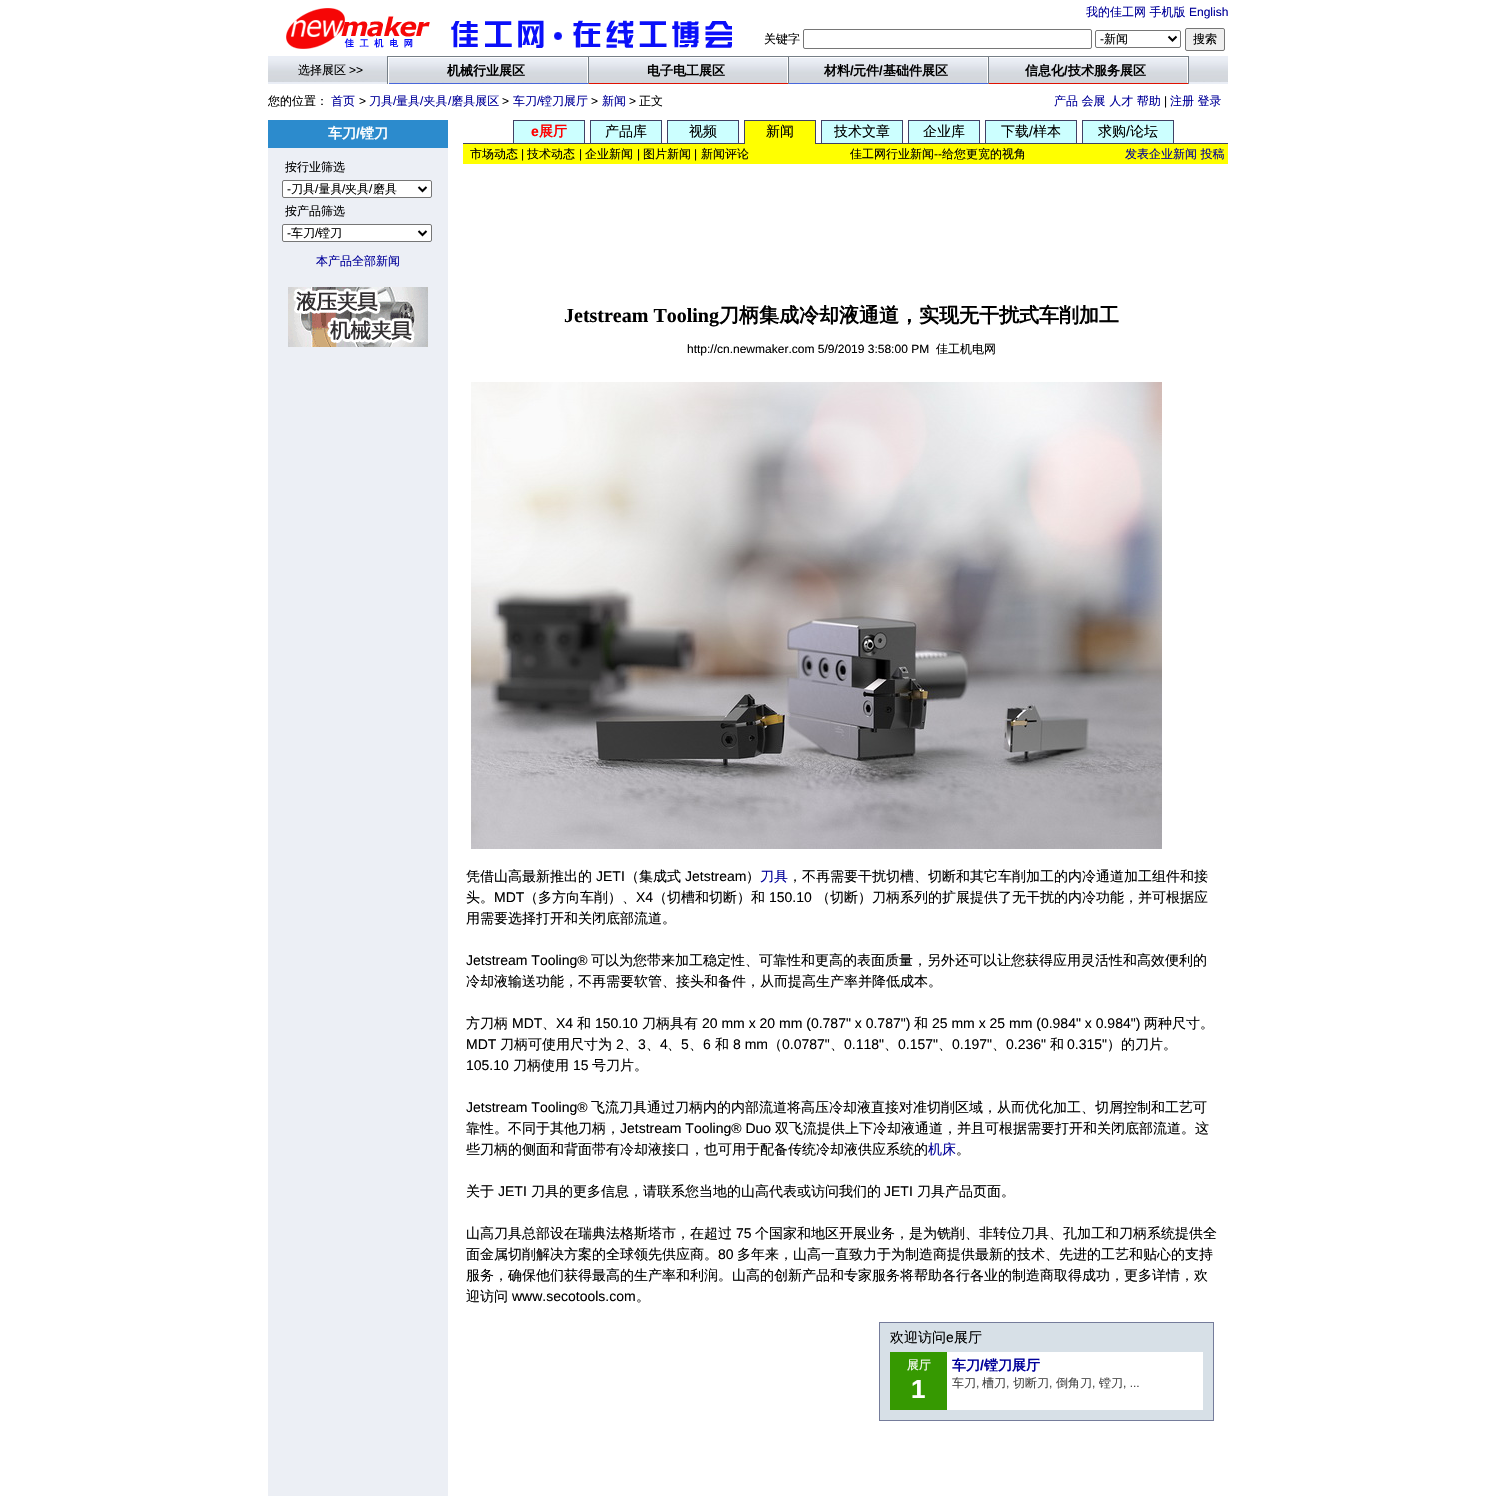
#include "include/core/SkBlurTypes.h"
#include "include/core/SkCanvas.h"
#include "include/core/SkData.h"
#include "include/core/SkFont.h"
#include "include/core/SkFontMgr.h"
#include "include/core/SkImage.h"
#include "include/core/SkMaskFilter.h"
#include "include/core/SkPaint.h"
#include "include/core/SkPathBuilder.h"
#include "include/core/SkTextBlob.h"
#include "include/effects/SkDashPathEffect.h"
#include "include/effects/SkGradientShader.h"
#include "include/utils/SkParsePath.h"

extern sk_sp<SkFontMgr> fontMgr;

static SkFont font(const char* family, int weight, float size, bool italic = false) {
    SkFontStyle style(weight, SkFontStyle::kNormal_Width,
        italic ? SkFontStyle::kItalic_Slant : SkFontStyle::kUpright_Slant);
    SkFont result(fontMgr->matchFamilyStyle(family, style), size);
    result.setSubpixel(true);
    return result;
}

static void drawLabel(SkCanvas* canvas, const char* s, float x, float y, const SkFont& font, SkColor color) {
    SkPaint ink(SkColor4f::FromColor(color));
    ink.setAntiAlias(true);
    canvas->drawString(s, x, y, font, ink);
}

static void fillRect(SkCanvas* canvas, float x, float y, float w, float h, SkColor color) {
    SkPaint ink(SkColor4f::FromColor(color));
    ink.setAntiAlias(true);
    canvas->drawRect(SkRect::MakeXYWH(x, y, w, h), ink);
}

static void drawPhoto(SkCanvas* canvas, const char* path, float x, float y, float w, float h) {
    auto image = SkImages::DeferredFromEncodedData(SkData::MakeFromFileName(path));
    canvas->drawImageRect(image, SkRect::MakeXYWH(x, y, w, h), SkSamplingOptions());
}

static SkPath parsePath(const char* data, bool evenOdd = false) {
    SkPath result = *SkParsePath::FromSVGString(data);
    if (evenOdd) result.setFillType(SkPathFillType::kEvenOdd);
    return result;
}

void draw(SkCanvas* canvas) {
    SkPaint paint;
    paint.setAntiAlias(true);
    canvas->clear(0xFFFFFFFF);
    drawPhoto(canvas, "assets/img1.png", 286, 8, 144, 41);
    drawPhoto(canvas, "assets/img2.png", 451, 20, 281, 28);
    SkFont font1 = font("WenQuanYi Zen Hei", 500, 12);
    drawLabel(canvas, "我的佳工网 手机版", 1086, 16, font1, 0xFF000099);
    SkFont font2 = font("Liberation Sans", 400, 12);
    drawLabel(canvas, "English", 1189, 16, font2, 0xFF000099);
    drawLabel(canvas, "关键字", 764, 43, font1, 0xFF000000);
    paint.setStroke(true);
    paint.setStrokeWidth(1);
    paint.setColor(0xFF767676);
    canvas->drawRoundRect(SkRect::MakeXYWH(803.5f, 29.5f, 288, 19), 1.5f, 1.5f, paint);
    canvas->drawRoundRect(SkRect::MakeXYWH(1095.5f, 30.5f, 85, 17), 1.5f, 1.5f, paint);
    paint.setStrokeWidth(2);
    paint.setColor(0xFF000000);
    canvas->drawPath(parsePath("M1168.5 36.5L1172.5 40.5L1176.5 36.5"), paint);
    drawLabel(canvas, "-", 1100, 43, font2, 0xFF000000);
    drawLabel(canvas, "新闻", 1104, 43, font1, 0xFF000000);
    paint.setStroke(false);
    paint.setColor(0xFFEFEFEF);
    canvas->drawRoundRect(SkRect::MakeXYWH(1185.5f, 28.5f, 39, 22), 1.5f, 1.5f, paint);
    paint.setStroke(true);
    paint.setStrokeWidth(1);
    paint.setColor(0xFF767676);
    canvas->drawRoundRect(SkRect::MakeXYWH(1185.5f, 28.5f, 39, 22), 1.5f, 1.5f, paint);
    drawLabel(canvas, "搜索", 1193, 43, font1, 0xFF000000);
    drawPhoto(canvas, "assets/img3.png", 268, 56, 119, 28);
    drawLabel(canvas, "选择展区", 298, 74, font1, 0xFF000000);
    drawLabel(canvas, ">>", 349, 74, font2, 0xFF000000);
    fillRect(canvas, 387, 56, 802, 1, 0xFF767F87);
    fillRect(canvas, 1188, 56, 1, 28, 0xFF767F87);
    fillRect(canvas, 387, 56, 1, 28, 0xFF767F87);
    drawPhoto(canvas, "assets/img4.png", 389, 58, 798, 25);
    fillRect(canvas, 587, 57, 1, 27, 0xFFFFFFFF);
    fillRect(canvas, 388, 83, 200, 1, 0xFF4867DC);
    fillRect(canvas, 388, 83, 1, 1, 0xFFFFFFFF);
    SkFont font3 = font("WenQuanYi Zen Hei", 700, 13);
    drawLabel(canvas, "机械行业展区", 447, 75, font3, 0xFF000000);
    fillRect(canvas, 787, 57, 1, 27, 0xFFFFFFFF);
    fillRect(canvas, 588, 83, 200, 1, 0xFFE01101);
    fillRect(canvas, 588, 57, 1, 27, 0xFF767F87);
    drawLabel(canvas, "电子电工展区", 647, 75, font3, 0xFF000000);
    fillRect(canvas, 987, 57, 1, 27, 0xFFFFFFFF);
    fillRect(canvas, 788, 83, 200, 1, 0xFF4867DC);
    fillRect(canvas, 788, 57, 1, 27, 0xFF767F87);
    drawLabel(canvas, "材料", 824, 75, font3, 0xFF000000);
    SkFont font4 = font("Liberation Sans", 700, 13);
    drawLabel(canvas, "/", 850, 75, font4, 0xFF000000);
    drawLabel(canvas, "元件 基础件展区", 853, 75, font3, 0xFF000000);
    drawLabel(canvas, "/", 879, 75, font4, 0xFF000000);
    fillRect(canvas, 988, 83, 200, 1, 0xFFE01101);
    fillRect(canvas, 988, 57, 1, 27, 0xFF767F87);
    drawLabel(canvas, "信息化 技术服务展区", 1025, 75, font3, 0xFF000000);
    drawLabel(canvas, "/", 1064, 75, font4, 0xFF000000);
    drawPhoto(canvas, "assets/img5.png", 1189, 56, 39, 28);
    drawLabel(canvas, "您的位置：", 268, 105, font1, 0xFF000000);
    drawLabel(canvas, "首页", 331, 105, font1, 0xFF000099);
    drawLabel(canvas, "刀具", 369, 105, font1, 0xFF000099);
    drawLabel(canvas, "/", 393, 105, font2, 0xFF000099);
    drawLabel(canvas, "量具 夹具 磨具展区", 396, 105, font1, 0xFF000099);
    drawLabel(canvas, "车刀", 513, 105, font1, 0xFF000099);
    drawLabel(canvas, "/", 537, 105, font2, 0xFF000099);
    drawLabel(canvas, "镗刀展厅", 540, 105, font1, 0xFF000099);
    drawLabel(canvas, "新闻", 602, 105, font1, 0xFF000099);
    drawLabel(canvas, "正文", 639, 105, font1, 0xFF000000);
    drawLabel(canvas, ">", 359, 105, font2, 0xFF000000);
    drawLabel(canvas, "/", 420, 105, font2, 0xFF000099);
    drawLabel(canvas, "/", 448, 105, font2, 0xFF000099);
    drawLabel(canvas, ">", 502, 105, font2, 0xFF000000);
    drawLabel(canvas, ">", 591, 105, font2, 0xFF000000);
    drawLabel(canvas, ">", 629, 105, font2, 0xFF000000);
    drawLabel(canvas, "产品 会展 人才 帮助", 1054, 105, font1, 0xFF000099);
    drawLabel(canvas, "|", 1164, 105, font2, 0xFF000000);
    drawLabel(canvas, "注册 登录", 1170, 105, font1, 0xFF000099);
    fillRect(canvas, 268, 148, 180, 1348, 0xFFECEFF5);
    fillRect(canvas, 268, 120, 180, 28, 0xFF2C8BCD);
    SkFont font5 = font("WenQuanYi Zen Hei", 700, 14);
    drawLabel(canvas, "车刀", 328, 138, font5, 0xFFFFFFFF);
    SkFont font6 = font("Liberation Sans", 700, 14);
    drawLabel(canvas, "/", 356, 138, font6, 0xFFFFFFFF);
    drawLabel(canvas, "镗刀", 360, 138, font5, 0xFFFFFFFF);
    drawLabel(canvas, "按行业筛选", 285, 171, font1, 0xFF000000);
    paint.setStroke(false);
    paint.setColor(0xFFFFFFFF);
    canvas->drawRoundRect(SkRect::MakeXYWH(282.5f, 180.5f, 149, 17), 1.5f, 1.5f, paint);
    paint.setStroke(true);
    paint.setColor(0xFF767676);
    canvas->drawRoundRect(SkRect::MakeXYWH(282.5f, 180.5f, 149, 17), 1.5f, 1.5f, paint);
    paint.setStrokeWidth(2);
    paint.setColor(0xFF000000);
    canvas->drawPath(parsePath("M418.5 187L422.5 191L426.5 187"), paint);
    drawLabel(canvas, "刀具 量具", 291, 193, font1, 0xFF000000);
    drawLabel(canvas, "/", 342, 193, font2, 0xFF000000);
    drawLabel(canvas, "夹具", 345, 193, font1, 0xFF000000);
    drawLabel(canvas, "/", 369, 193, font2, 0xFF000000);
    drawLabel(canvas, "磨具", 373, 193, font1, 0xFF000000);
    drawLabel(canvas, "-", 287, 193, font2, 0xFF000000);
    drawLabel(canvas, "/", 315, 193, font2, 0xFF000000);
    drawLabel(canvas, "按产品筛选", 285, 215, font1, 0xFF000000);
    paint.setStroke(false);
    paint.setColor(0xFFFFFFFF);
    canvas->drawRoundRect(SkRect::MakeXYWH(282.5f, 224.5f, 149, 17), 1.5f, 1.5f, paint);
    paint.setStroke(true);
    paint.setStrokeWidth(1);
    paint.setColor(0xFF767676);
    canvas->drawRoundRect(SkRect::MakeXYWH(282.5f, 224.5f, 149, 17), 1.5f, 1.5f, paint);
    paint.setStrokeWidth(2);
    paint.setColor(0xFF000000);
    canvas->drawPath(parsePath("M418.5 231L422.5 235L426.5 231"), paint);
    drawLabel(canvas, "-", 287, 237, font2, 0xFF000000);
    drawLabel(canvas, "车刀", 291, 237, font1, 0xFF000000);
    drawLabel(canvas, "/", 315, 237, font2, 0xFF000000);
    drawLabel(canvas, "镗刀", 318, 237, font1, 0xFF000000);
    drawLabel(canvas, "本产品全部新闻", 316, 265, font1, 0xFF000099);
    drawPhoto(canvas, "assets/img6.png", 288, 287, 140, 60);
    fillRect(canvas, 513, 120, 72, 1, 0xFF414165);
    fillRect(canvas, 590, 120, 72, 1, 0xFF414165);
    fillRect(canvas, 667, 120, 72, 1, 0xFF414165);
    fillRect(canvas, 744, 120, 72, 1, 0xFF414165);
    fillRect(canvas, 821, 120, 82, 1, 0xFF414165);
    fillRect(canvas, 908, 120, 72, 1, 0xFF414165);
    fillRect(canvas, 985, 120, 92, 1, 0xFF414165);
    fillRect(canvas, 1082, 120, 92, 1, 0xFF414165);
    fillRect(canvas, 513, 121, 1, 22, 0xFF414165);
    fillRect(canvas, 514, 121, 70, 22, 0xFFCCFFFF);
    drawLabel(canvas, "e", 531, 136, font6, 0xFFFF0000);
    drawLabel(canvas, "展厅", 539, 136, font5, 0xFFFF0000);
    fillRect(canvas, 584, 121, 1, 22, 0xFF414165);
    fillRect(canvas, 590, 121, 1, 22, 0xFF414165);
    fillRect(canvas, 591, 121, 70, 22, 0xFFCCFFFF);
    SkFont font7 = font("WenQuanYi Zen Hei", 500, 14);
    drawLabel(canvas, "产品库", 605, 136, font7, 0xFF000000);
    fillRect(canvas, 661, 121, 1, 22, 0xFF414165);
    fillRect(canvas, 667, 121, 1, 22, 0xFF414165);
    fillRect(canvas, 668, 121, 70, 22, 0xFFCCFFFF);
    drawLabel(canvas, "视频", 689, 136, font7, 0xFF000000);
    fillRect(canvas, 738, 121, 1, 22, 0xFF414165);
    fillRect(canvas, 744, 121, 1, 22, 0xFF414165);
    fillRect(canvas, 745, 121, 70, 23, 0xFFFFFF00);
    drawLabel(canvas, "新闻", 766, 136, font7, 0xFF000000);
    fillRect(canvas, 815, 121, 1, 22, 0xFF414165);
    fillRect(canvas, 821, 121, 1, 22, 0xFF414165);
    fillRect(canvas, 822, 121, 80, 22, 0xFFCCFFFF);
    drawLabel(canvas, "技术文章", 834, 136, font7, 0xFF000000);
    fillRect(canvas, 902, 121, 1, 22, 0xFF414165);
    fillRect(canvas, 908, 121, 1, 22, 0xFF414165);
    fillRect(canvas, 909, 121, 70, 22, 0xFFCCFFFF);
    drawLabel(canvas, "企业库", 923, 136, font7, 0xFF000000);
    fillRect(canvas, 979, 121, 1, 22, 0xFF414165);
    fillRect(canvas, 985, 121, 1, 22, 0xFF414165);
    fillRect(canvas, 986, 121, 90, 22, 0xFFCCFFFF);
    drawLabel(canvas, "下载", 1001, 136, font7, 0xFF000000);
    SkFont font8 = font("Liberation Sans", 400, 14);
    drawLabel(canvas, "/", 1029, 136, font8, 0xFF000000);
    drawLabel(canvas, "样本", 1033, 136, font7, 0xFF000000);
    fillRect(canvas, 1076, 121, 1, 22, 0xFF414165);
    fillRect(canvas, 1082, 121, 1, 22, 0xFF414165);
    fillRect(canvas, 1083, 121, 90, 22, 0xFFCCFFFF);
    drawLabel(canvas, "求购", 1098, 136, font7, 0xFF000000);
    drawLabel(canvas, "/", 1126, 136, font8, 0xFF000000);
    drawLabel(canvas, "论坛", 1130, 136, font7, 0xFF000000);
    fillRect(canvas, 1173, 121, 1, 22, 0xFF414165);
    fillRect(canvas, 463, 143, 282, 1, 0xFF414165);
    fillRect(canvas, 815, 143, 413, 1, 0xFF414165);
    fillRect(canvas, 463, 144, 765, 20, 0xFFFFFF00);
    drawLabel(canvas, "市场动态", 470, 158, font1, 0xFF000000);
    drawLabel(canvas, "|", 521, 158, font2, 0xFF000000);
    drawLabel(canvas, "技术动态", 527, 158, font1, 0xFF000000);
    drawLabel(canvas, "|", 579, 158, font2, 0xFF000000);
    drawLabel(canvas, "企业新闻", 585, 158, font1, 0xFF000000);
    drawLabel(canvas, "|", 637, 158, font2, 0xFF000000);
    drawLabel(canvas, "图片新闻", 643, 158, font1, 0xFF000000);
    drawLabel(canvas, "|", 694, 158, font2, 0xFF000000);
    drawLabel(canvas, "新闻评论", 701, 158, font1, 0xFF000000);
    drawLabel(canvas, "佳工网行业新闻", 850, 158, font1, 0xFF000000);
    drawLabel(canvas, "--", 934, 158, font2, 0xFF000000);
    drawLabel(canvas, "给您更宽的视角", 942, 158, font1, 0xFF000000);
    drawLabel(canvas, "发表企业新闻 投稿", 1125, 158, font1, 0xFF000099);
    SkFont font9 = font("Liberation Serif", 700, 20);
    drawLabel(canvas, "Jetstream Tooling", 564, 322, font9, 0xFF000000);
    SkFont font10 = font("WenQuanYi Zen Hei", 700, 20);
    drawLabel(canvas, "刀柄集成冷却液通道，实现无干扰式车削加工", 719, 322, font10, 0xFF000000);
    drawLabel(canvas, "http://cn.newmaker.com 5/9/2019 3:58:00 PM", 687, 353, font2, 0xFF000000);
    drawLabel(canvas, "佳工机电网", 936, 353, font1, 0xFF000000);
    drawPhoto(canvas, "assets/img7.png", 471, 382, 691, 467);
    drawLabel(canvas, "凭借山高最新推出的", 466, 881, font7, 0xFF000000);
    drawLabel(canvas, "JETI", 596, 881, font8, 0xFF000000);
    drawLabel(canvas, "（集成式", 625, 881, font7, 0xFF000000);
    drawLabel(canvas, "Jetstream", 685, 881, font8, 0xFF000000);
    drawLabel(canvas, "）", 746, 881, font7, 0xFF000000);
    drawLabel(canvas, "刀具", 760, 881, font7, 0xFF000099);
    drawLabel(canvas, "，不再需要干扰切槽、切断和其它车削加工的内冷通道加工组件和接", 788, 881, font7, 0xFF000000);
    drawLabel(canvas, "头。", 466, 902, font7, 0xFF000000);
    drawLabel(canvas, "MDT", 494, 902, font8, 0xFF000000);
    drawLabel(canvas, "（多方向车削）、", 524, 902, font7, 0xFF000000);
    drawLabel(canvas, "X4", 636, 902, font8, 0xFF000000);
    drawLabel(canvas, "（切槽和切断）和", 653, 902, font7, 0xFF000000);
    drawLabel(canvas, "150.10", 769, 902, font8, 0xFF000000);
    drawLabel(canvas, "（切断）刀柄系列的扩展提供了无干扰的内冷功能，并可根据应", 816, 902, font7, 0xFF000000);
    drawLabel(canvas, "用需要选择打开和关闭底部流道。", 466, 923, font7, 0xFF000000);
    drawLabel(canvas, "Jetstream Tooling®", 466, 965, font8, 0xFF000000);
    drawLabel(canvas, "可以为您带来加工稳定性、可靠性和更高的表面质量，另外还可以让您获得应用灵活性和高效便利的", 591, 965, font7, 0xFF000000);
    drawLabel(canvas, "冷却液输送功能，不再需要软管、接头和备件，从而提高生产率并降低成本。", 466, 986, font7, 0xFF000000);
    drawLabel(canvas, "方刀柄", 466, 1028, font7, 0xFF000000);
    drawLabel(canvas, "MDT", 512, 1028, font8, 0xFF000000);
    drawLabel(canvas, "、", 542, 1028, font7, 0xFF000000);
    drawLabel(canvas, "X4", 556, 1028, font8, 0xFF000000);
    drawLabel(canvas, "和", 577, 1028, font7, 0xFF000000);
    drawLabel(canvas, "150.10", 595, 1028, font8, 0xFF000000);
    drawLabel(canvas, "刀柄具有", 642, 1028, font7, 0xFF000000);
    drawLabel(canvas, "20 mm x 20 mm (0.787\" x 0.787\")", 702, 1028, font8, 0xFF000000);
    drawLabel(canvas, "和", 914, 1028, font7, 0xFF000000);
    drawLabel(canvas, "25 mm x 25 mm (0.984\" x 0.984\")", 932, 1028, font8, 0xFF000000);
    drawLabel(canvas, "两种尺寸。", 1144, 1028, font7, 0xFF000000);
    drawLabel(canvas, "MDT", 466, 1049, font8, 0xFF000000);
    drawLabel(canvas, "刀柄可使用尺寸为", 500, 1049, font7, 0xFF000000);
    drawLabel(canvas, "2", 616, 1049, font8, 0xFF000000);
    drawLabel(canvas, "、", 624, 1049, font7, 0xFF000000);
    drawLabel(canvas, "3", 638, 1049, font8, 0xFF000000);
    drawLabel(canvas, "、", 646, 1049, font7, 0xFF000000);
    drawLabel(canvas, "4", 660, 1049, font8, 0xFF000000);
    drawLabel(canvas, "、", 667, 1049, font7, 0xFF000000);
    drawLabel(canvas, "5", 681, 1049, font8, 0xFF000000);
    drawLabel(canvas, "、", 689, 1049, font7, 0xFF000000);
    drawLabel(canvas, "6", 703, 1049, font8, 0xFF000000);
    drawLabel(canvas, "和", 715, 1049, font7, 0xFF000000);
    drawLabel(canvas, "8 mm", 733, 1049, font8, 0xFF000000);
    drawLabel(canvas, "（", 768, 1049, font7, 0xFF000000);
    drawLabel(canvas, "0.0787\"", 782, 1049, font8, 0xFF000000);
    drawLabel(canvas, "、", 830, 1049, font7, 0xFF000000);
    drawLabel(canvas, "0.118\"", 844, 1049, font8, 0xFF000000);
    drawLabel(canvas, "、", 884, 1049, font7, 0xFF000000);
    drawLabel(canvas, "0.157\"", 898, 1049, font8, 0xFF000000);
    drawLabel(canvas, "、", 938, 1049, font7, 0xFF000000);
    drawLabel(canvas, "0.197\"", 952, 1049, font8, 0xFF000000);
    drawLabel(canvas, "、", 992, 1049, font7, 0xFF000000);
    drawLabel(canvas, "0.236\"", 1006, 1049, font8, 0xFF000000);
    drawLabel(canvas, "和", 1050, 1049, font7, 0xFF000000);
    drawLabel(canvas, "0.315\"", 1067, 1049, font8, 0xFF000000);
    drawLabel(canvas, "）的刀片。", 1107, 1049, font7, 0xFF000000);
    drawLabel(canvas, "105.10", 466, 1070, font8, 0xFF000000);
    drawLabel(canvas, "刀柄使用", 513, 1070, font7, 0xFF000000);
    drawLabel(canvas, "15", 573, 1070, font8, 0xFF000000);
    drawLabel(canvas, "号刀片。", 592, 1070, font7, 0xFF000000);
    drawLabel(canvas, "Jetstream Tooling®", 466, 1112, font8, 0xFF000000);
    drawLabel(canvas, "飞流刀具通过刀柄内的内部流道将高压冷却液直接对准切削区域，从而优化加工、切屑控制和工艺可", 591, 1112, font7, 0xFF000000);
    drawLabel(canvas, "靠性。不同于其他刀柄，", 466, 1133, font7, 0xFF000000);
    drawLabel(canvas, "Jetstream Tooling® Duo", 620, 1133, font8, 0xFF000000);
    drawLabel(canvas, "双飞流提供上下冷却液通道，并且可根据需要打开和关闭底部流道。这", 775, 1133, font7, 0xFF000000);
    drawLabel(canvas, "些刀柄的侧面和背面带有冷却液接口，也可用于配备传统冷却液供应系统的", 466, 1154, font7, 0xFF000000);
    drawLabel(canvas, "机床", 928, 1154, font7, 0xFF000099);
    drawLabel(canvas, "。", 956, 1154, font7, 0xFF000000);
    drawLabel(canvas, "关于", 466, 1196, font7, 0xFF000000);
    drawLabel(canvas, "JETI", 498, 1196, font8, 0xFF000000);
    drawLabel(canvas, "刀具的更多信息，请联系您当地的山高代表或访问我们的", 531, 1196, font7, 0xFF000000);
    drawLabel(canvas, "JETI", 884, 1196, font8, 0xFF000000);
    drawLabel(canvas, "刀具产品页面。", 917, 1196, font7, 0xFF000000);
    drawLabel(canvas, "山高刀具总部设在瑞典法格斯塔市，在超过", 466, 1238, font7, 0xFF000000);
    drawLabel(canvas, "75", 736, 1238, font8, 0xFF000000);
    drawLabel(canvas, "个国家和地区开展业务，是为铣削、非转位刀具、孔加工和刀柄系统提供全", 755, 1238, font7, 0xFF000000);
    drawLabel(canvas, "面金属切削解决方案的全球领先供应商。", 466, 1259, font7, 0xFF000000);
    drawLabel(canvas, "80", 718, 1259, font8, 0xFF000000);
    drawLabel(canvas, "多年来，山高一直致力于为制造商提供最新的技术、先进的工艺和贴心的支持", 737, 1259, font7, 0xFF000000);
    drawLabel(canvas, "服务，确保他们获得最高的生产率和利润。山高的创新产品和专家服务将帮助各行各业的制造商取得成功，更多详情，欢", 466, 1280, font7, 0xFF000000);
    drawLabel(canvas, "迎访问", 466, 1301, font7, 0xFF000000);
    drawLabel(canvas, "www.secotools.com", 512, 1301, font8, 0xFF000000);
    drawLabel(canvas, "。", 636, 1301, font7, 0xFF000000);
    paint.setStroke(false);
    paint.setColor(0xFFD7E0E7);
    canvas->drawRect(SkRect::MakeXYWH(879.5f, 1322.5f, 334, 98), paint);
    paint.setStroke(true);
    paint.setStrokeWidth(1);
    paint.setColor(0xFF757C9B);
    canvas->drawRect(SkRect::MakeXYWH(879.5f, 1322.5f, 334, 98), paint);
    drawLabel(canvas, "欢迎访问", 890, 1342, font7, 0xFF000000);
    drawLabel(canvas, "e", 946, 1342, font8, 0xFF000000);
    drawLabel(canvas, "展厅", 954, 1342, font7, 0xFF000000);
    fillRect(canvas, 890, 1352, 57, 58, 0xFF369901);
    drawLabel(canvas, "展厅", 907, 1369, font1, 0xFFFFFFFF);
    SkFont font11 = font("Liberation Sans", 700, 26);
    drawLabel(canvas, "1", 911, 1398, font11, 0xFFFFFFFF);
    fillRect(canvas, 947, 1352, 256, 58, 0xFFFFFFFF);
    drawLabel(canvas, "车刀", 952, 1370, font5, 0xFF000099);
    drawLabel(canvas, "/", 980, 1370, font6, 0xFF000099);
    drawLabel(canvas, "镗刀展厅", 984, 1370, font5, 0xFF000099);
    drawLabel(canvas, "车刀", 952, 1387, font1, 0xFF444444);
    drawLabel(canvas, ",", 976, 1387, font2, 0xFF444444);
    drawLabel(canvas, "槽刀", 982, 1387, font1, 0xFF444444);
    drawLabel(canvas, ",", 1006, 1387, font2, 0xFF444444);
    drawLabel(canvas, "切断刀", 1013, 1387, font1, 0xFF444444);
    drawLabel(canvas, ",", 1049, 1387, font2, 0xFF444444);
    drawLabel(canvas, "倒角刀", 1056, 1387, font1, 0xFF444444);
    drawLabel(canvas, ",", 1092, 1387, font2, 0xFF444444);
    drawLabel(canvas, "镗刀", 1099, 1387, font1, 0xFF444444);
    drawLabel(canvas, ", ...", 1123, 1387, font2, 0xFF444444);
}
